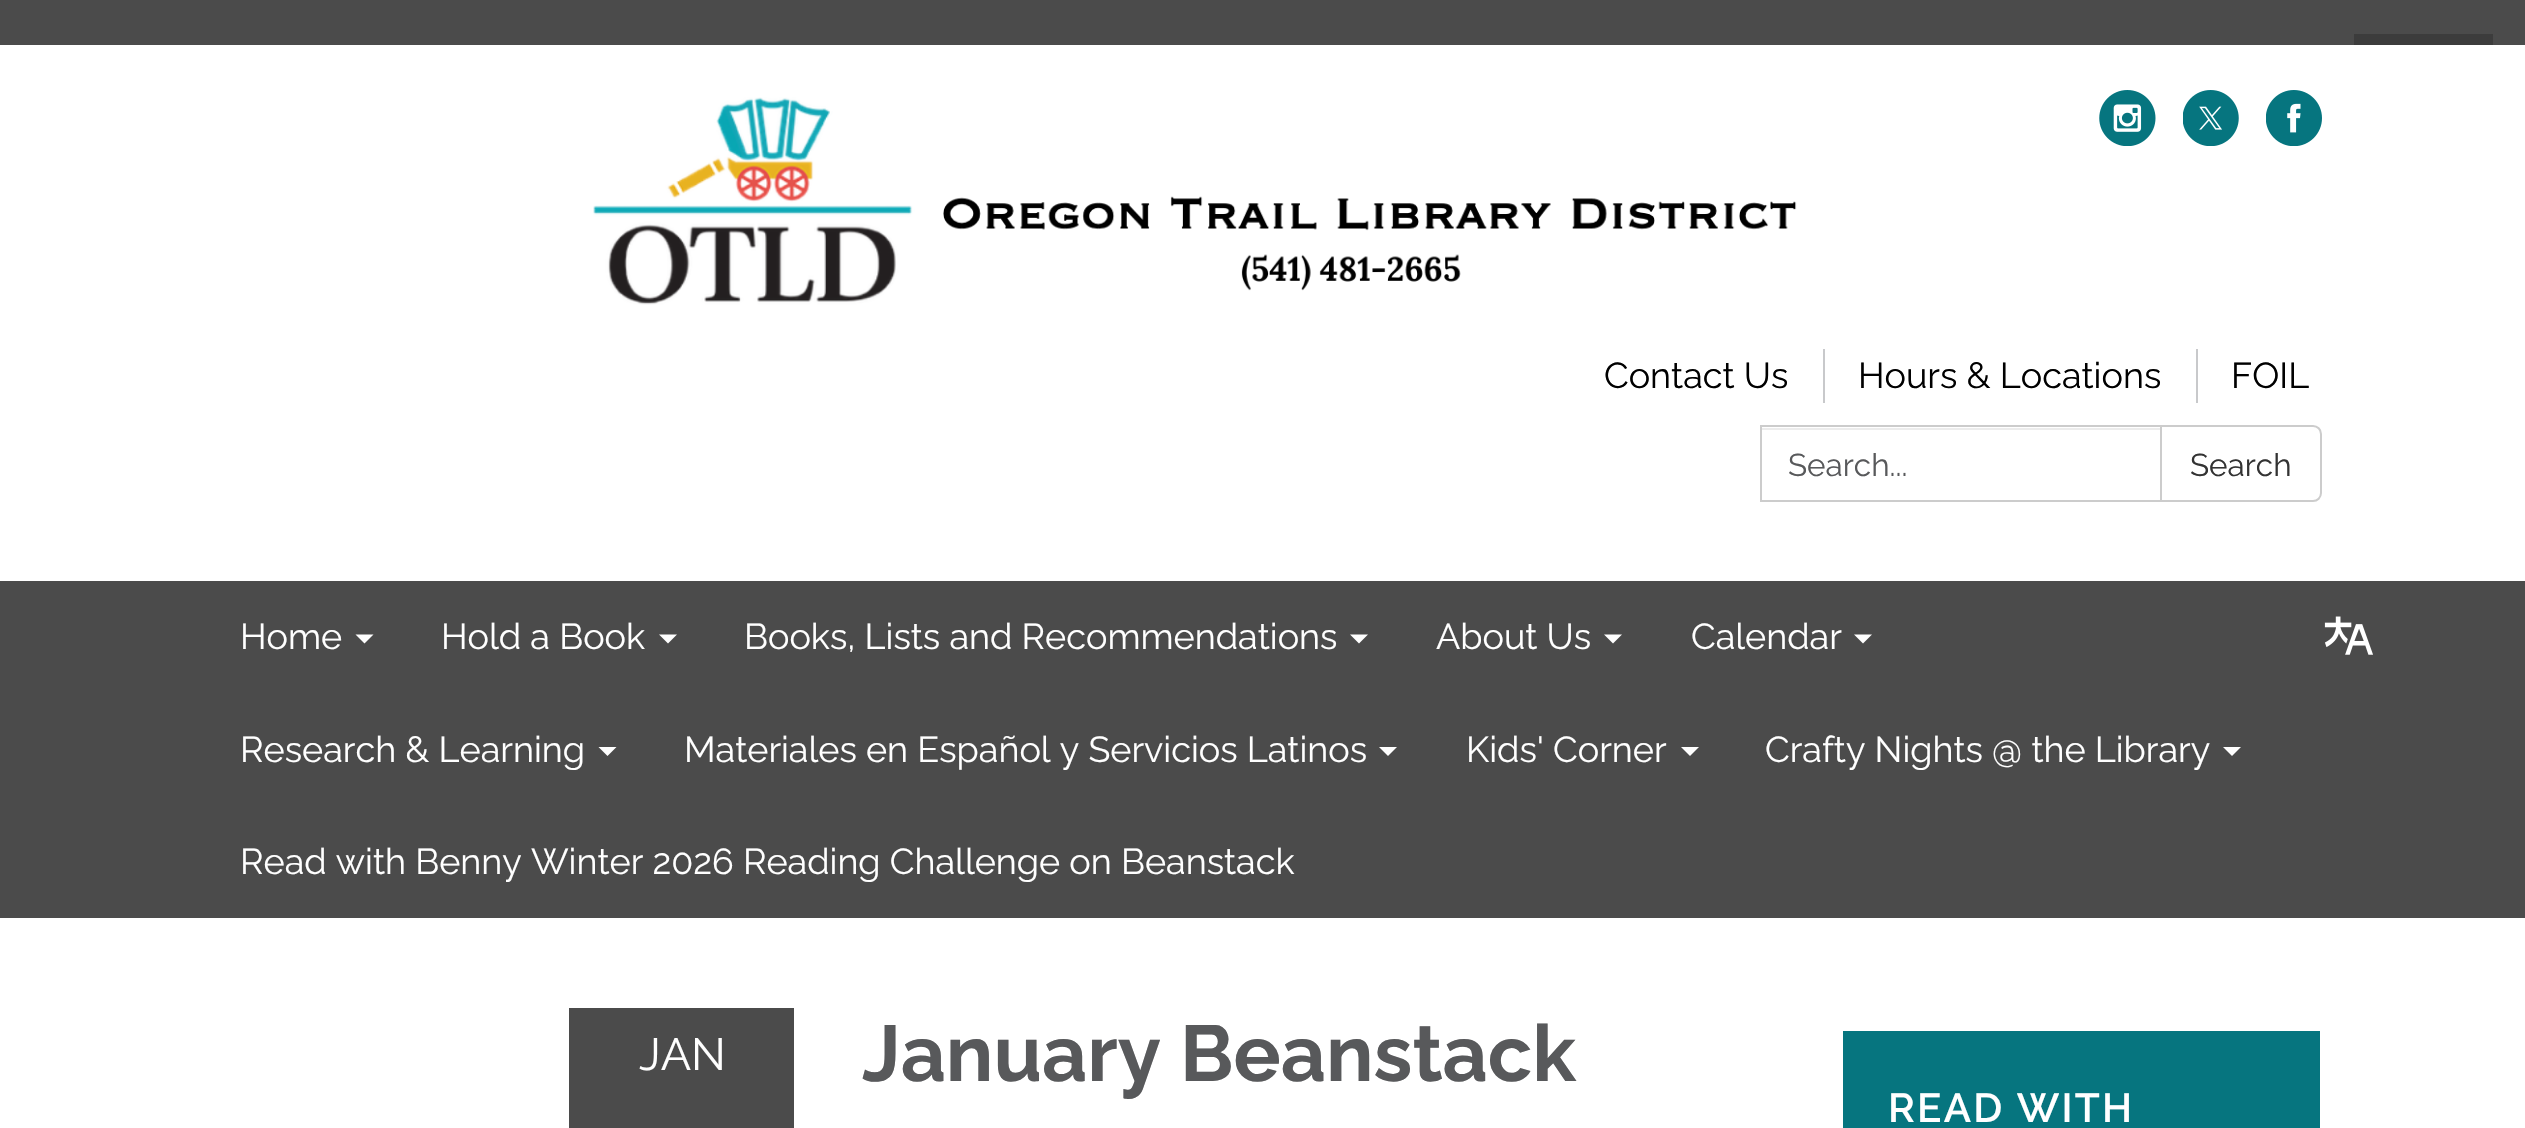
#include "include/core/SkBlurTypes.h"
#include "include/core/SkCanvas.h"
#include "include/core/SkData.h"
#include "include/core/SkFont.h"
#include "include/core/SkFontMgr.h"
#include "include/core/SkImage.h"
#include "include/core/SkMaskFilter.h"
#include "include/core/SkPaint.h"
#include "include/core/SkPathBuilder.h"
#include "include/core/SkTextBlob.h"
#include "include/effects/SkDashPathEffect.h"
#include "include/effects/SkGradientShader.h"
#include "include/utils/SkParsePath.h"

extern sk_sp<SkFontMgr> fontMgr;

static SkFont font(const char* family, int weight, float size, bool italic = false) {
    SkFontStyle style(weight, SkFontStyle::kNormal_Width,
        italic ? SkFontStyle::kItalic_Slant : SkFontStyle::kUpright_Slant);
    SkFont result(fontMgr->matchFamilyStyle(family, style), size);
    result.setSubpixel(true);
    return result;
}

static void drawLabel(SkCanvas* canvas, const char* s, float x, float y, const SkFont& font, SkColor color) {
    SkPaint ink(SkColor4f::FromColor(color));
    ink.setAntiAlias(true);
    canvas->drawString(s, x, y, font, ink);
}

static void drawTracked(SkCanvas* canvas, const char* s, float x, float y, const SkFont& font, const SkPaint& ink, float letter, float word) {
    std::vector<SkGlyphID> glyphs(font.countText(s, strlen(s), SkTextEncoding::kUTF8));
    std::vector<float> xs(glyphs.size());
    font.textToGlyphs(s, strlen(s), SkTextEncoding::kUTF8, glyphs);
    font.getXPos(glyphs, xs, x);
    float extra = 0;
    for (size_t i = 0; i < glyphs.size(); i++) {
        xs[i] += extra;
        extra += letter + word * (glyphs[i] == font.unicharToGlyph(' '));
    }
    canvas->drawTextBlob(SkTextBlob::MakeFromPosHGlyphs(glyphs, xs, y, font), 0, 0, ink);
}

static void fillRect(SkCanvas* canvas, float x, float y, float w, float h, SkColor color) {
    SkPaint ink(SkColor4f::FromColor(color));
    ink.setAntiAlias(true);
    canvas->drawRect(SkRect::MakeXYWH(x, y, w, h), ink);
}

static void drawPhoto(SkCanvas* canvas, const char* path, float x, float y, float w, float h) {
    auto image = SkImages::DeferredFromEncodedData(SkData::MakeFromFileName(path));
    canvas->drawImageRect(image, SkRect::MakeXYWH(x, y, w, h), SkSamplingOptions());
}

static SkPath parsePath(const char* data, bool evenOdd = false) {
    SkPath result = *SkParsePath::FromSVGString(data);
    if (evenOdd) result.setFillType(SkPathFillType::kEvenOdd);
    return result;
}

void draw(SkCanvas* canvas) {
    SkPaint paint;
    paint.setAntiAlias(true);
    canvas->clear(0xFF4B4B4B);
    fillRect(canvas, 2354, 34, 139, 11, 0xFF3C3C3C);
    fillRect(canvas, 0, 45, 2525, 536, 0xFFFFFFFF);
    drawPhoto(canvas, "assets/img1.png", 593, 97, 1204, 208);
    drawPhoto(canvas, "assets/img2.png", 2099, 90, 57, 56);
    drawPhoto(canvas, "assets/img3.png", 2183, 90, 56, 56);
    drawPhoto(canvas, "assets/img4.png", 2266, 90, 56, 56);
    SkFont font1 = font("Raleway", 400, 36);
    drawLabel(canvas, "Contact Us", 1604, 388, font1, 0xFF000000);
    fillRect(canvas, 1823, 349, 2, 54, 0xFFC8C9CB);
    drawLabel(canvas, "Hours & Locations", 1858, 388, font1, 0xFF000000);
    fillRect(canvas, 2196, 349, 2, 54, 0xFFC8C9CB);
    drawLabel(canvas, "FOIL", 2231, 388, font1, 0xFF000000);
    fillRect(canvas, 1762, 428, 398, 2, 0xFFECECEC);
    paint.setStroke(true);
    paint.setStrokeWidth(2);
    paint.setColor(0xFFCCCCCC);
    canvas->drawRect(SkRect::MakeXYWH(1761, 426, 400, 75), paint);
    SkFont font2 = font("Raleway", 400, 31.5f);
    drawLabel(canvas, "Search...", 1788, 476, font2, 0xFF58595B);
    paint.setStroke(false);
    paint.setColor(0xFFFFFFFF);
    canvas->drawPath(parsePath("M2161 426H2313C2317.5 426 2321 429.5 2321 434V493C2321 497.5 2317.5 501 2313 501H2161Z"), paint);
    paint.setStroke(true);
    paint.setColor(0xFFCCCCCC);
    canvas->drawPath(parsePath("M2161 426H2313C2317.5 426 2321 429.5 2321 434V493C2321 497.5 2317.5 501 2313 501H2161Z"), paint);
    drawLabel(canvas, "Search", 2190, 476, font2, 0xFF333333);
    drawLabel(canvas, "Home", 240, 649, font1, 0xFFFFFFFF);
    paint.setStroke(false);
    paint.setColor(0xFFFFFFFF);
    canvas->drawPath(parsePath("M355.5 634.5H373.5L364.5 643.5Z"), paint);
    drawLabel(canvas, "Hold a Book", 441, 649, font1, 0xFFFFFFFF);
    canvas->drawPath(parsePath("M659 634.5H677L668 643.5Z"), paint);
    drawLabel(canvas, "Books, Lists and Recommendations", 744, 649, font1, 0xFFFFFFFF);
    canvas->drawPath(parsePath("M1350 634.5H1368L1359 643.5Z"), paint);
    drawLabel(canvas, "About Us", 1436, 649, font1, 0xFFFFFFFF);
    canvas->drawPath(parsePath("M1604 634.5H1622L1613 643.5Z"), paint);
    drawLabel(canvas, "Calendar", 1691, 649, font1, 0xFFFFFFFF);
    canvas->drawPath(parsePath("M1854 634.5H1872L1863 643.5Z"), paint);
    drawLabel(canvas, "Research & Learning", 240, 762, font1, 0xFFFFFFFF);
    canvas->drawPath(parsePath("M598.5 747H616.5L607.5 756Z"), paint);
    drawLabel(canvas, "Materiales en Español y Servicios Latinos", 684, 762, font1, 0xFFFFFFFF);
    canvas->drawPath(parsePath("M1379 747H1397L1388 756Z"), paint);
    drawLabel(canvas, "Kids' Corner", 1466, 762, font1, 0xFFFFFFFF);
    canvas->drawPath(parsePath("M1681 747H1699L1690 756Z"), paint);
    drawLabel(canvas, "Crafty Nights @ the Library", 1765, 762, font1, 0xFFFFFFFF);
    canvas->drawPath(parsePath("M2223 747H2241L2232 756Z"), paint);
    drawLabel(canvas, "Read with Benny Winter 2026 Reading Challenge on Beanstack", 240, 874, font1, 0xFFFFFFFF);
    drawPhoto(canvas, "assets/img5.png", 2324, 616, 49, 39);
    fillRect(canvas, 0, 918, 2525, 210, 0xFFFFFFFF);
    fillRect(canvas, 569, 1008, 225, 120, 0xFF4B4B4B);
    SkFont font3 = font("Raleway", 400, 45);
    drawLabel(canvas, "JAN", 639, 1070, font3, 0xFFFFFFFF);
    SkFont font4 = font("Raleway", 700, 78.75f);
    drawLabel(canvas, "January Beanstack", 862, 1081, font4, 0xFF58595B);
    fillRect(canvas, 1843, 1031, 477, 97, 0xFF06757F);
    SkFont font5 = font("Raleway", 600, 40.5f);
    drawTracked(canvas, "READ WITH", 1888, 1122, font5, paint, 2.25f, 0);
}
